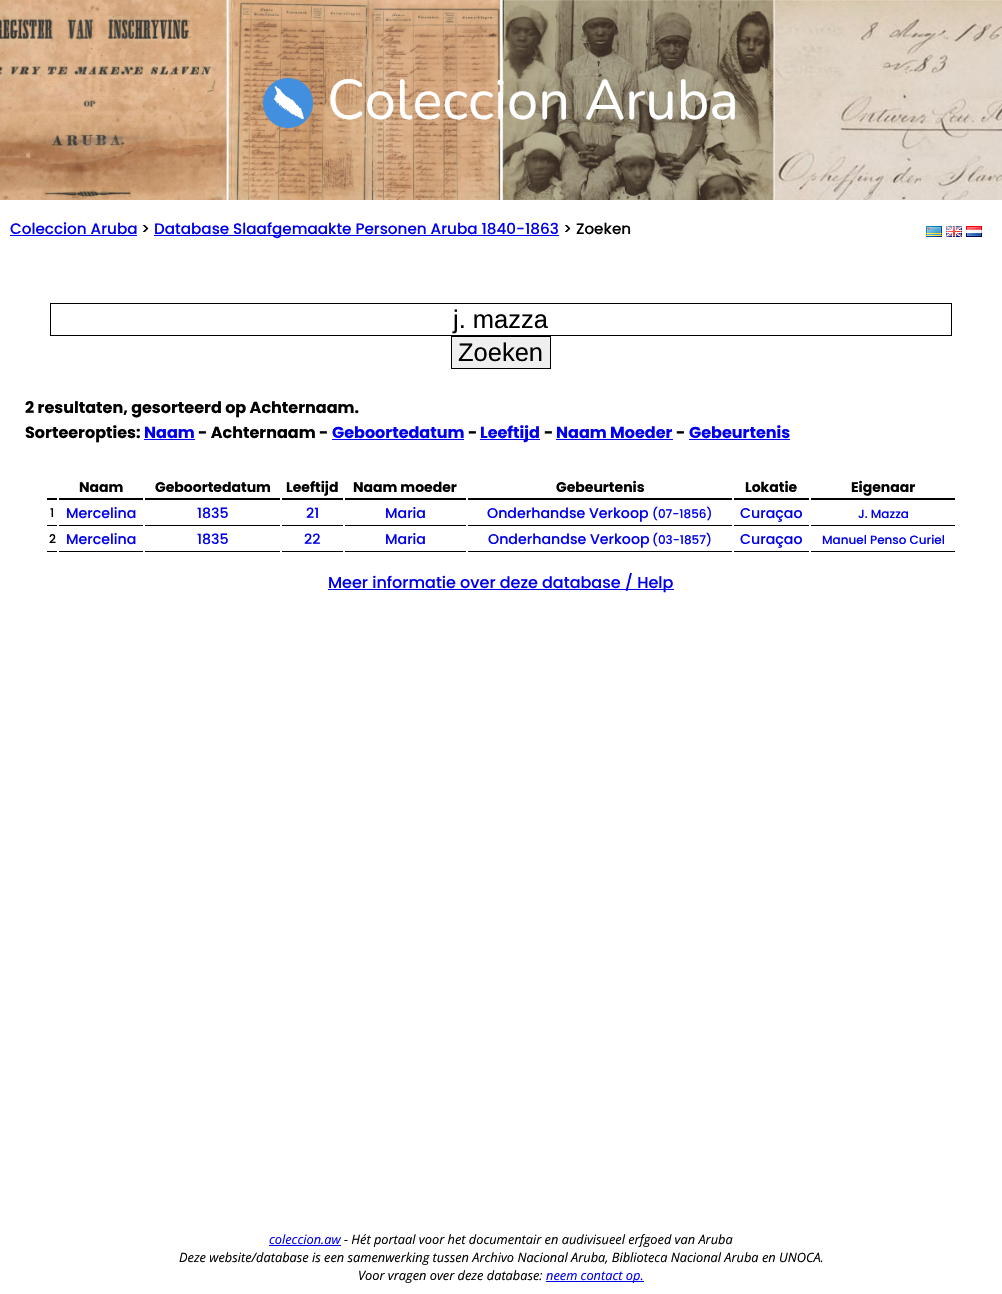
#include "include/core/SkBlurTypes.h"
#include "include/core/SkCanvas.h"
#include "include/core/SkData.h"
#include "include/core/SkFont.h"
#include "include/core/SkFontMgr.h"
#include "include/core/SkImage.h"
#include "include/core/SkMaskFilter.h"
#include "include/core/SkPaint.h"
#include "include/core/SkPathBuilder.h"
#include "include/core/SkTextBlob.h"
#include "include/effects/SkDashPathEffect.h"
#include "include/effects/SkGradientShader.h"
#include "include/utils/SkParsePath.h"

extern sk_sp<SkFontMgr> fontMgr;

static SkFont font(const char* family, int weight, float size, bool italic = false) {
    SkFontStyle style(weight, SkFontStyle::kNormal_Width,
        italic ? SkFontStyle::kItalic_Slant : SkFontStyle::kUpright_Slant);
    SkFont result(fontMgr->matchFamilyStyle(family, style), size);
    result.setSubpixel(true);
    return result;
}

static void drawLabel(SkCanvas* canvas, const char* s, float x, float y, const SkFont& font, SkColor color) {
    SkPaint ink(SkColor4f::FromColor(color));
    ink.setAntiAlias(true);
    canvas->drawString(s, x, y, font, ink);
}

static void fillRect(SkCanvas* canvas, float x, float y, float w, float h, SkColor color) {
    SkPaint ink(SkColor4f::FromColor(color));
    ink.setAntiAlias(true);
    canvas->drawRect(SkRect::MakeXYWH(x, y, w, h), ink);
}

static void drawPhoto(SkCanvas* canvas, const char* path, float x, float y, float w, float h) {
    auto image = SkImages::DeferredFromEncodedData(SkData::MakeFromFileName(path));
    canvas->drawImageRect(image, SkRect::MakeXYWH(x, y, w, h), SkSamplingOptions());
}

void draw(SkCanvas* canvas) {
    SkPaint paint;
    paint.setAntiAlias(true);
    canvas->clear(0xFFFFFFFF);
    drawPhoto(canvas, "assets/img1.png", 0, 0, 1002, 200);
    drawPhoto(canvas, "assets/img2.png", 263, 78, 50, 50);
    SkFont font1 = font("Nunito", 400, 56);
    drawLabel(canvas, "Coleccion Aruba", 327, 119, font1, 0xFFFFFFFF);
    SkFont font2 = font("Poppins", 500, 15.2f);
    drawLabel(canvas, "Coleccion Aruba", 10, 234, font2, 0xFF0000EE);
    fillRect(canvas, 10, 235, 127, 1, 0xFF0000EE);
    drawLabel(canvas, ">", 141, 234, font2, 0xFF000000);
    fillRect(canvas, 154, 235, 405, 1, 0xFF0000EE);
    drawLabel(canvas, "Database Slaafgemaakte Personen Aruba 1840-1863", 154, 234, font2, 0xFF0000EE);
    drawLabel(canvas, "> Zoeken", 563, 234, font2, 0xFF000000);
    drawPhoto(canvas, "assets/img3.png", 926, 226, 16, 11);
    drawPhoto(canvas, "assets/img4.png", 946, 226, 16, 11);
    drawPhoto(canvas, "assets/img5.png", 966, 226, 16, 11);
    paint.setStroke(true);
    paint.setStrokeWidth(1);
    paint.setColor(0xFF000000);
    canvas->drawRect(SkRect::MakeXYWH(50.5f, 303.5f, 901, 32), paint);
    SkFont font3 = font("Liberation Sans", 400, 25.5f);
    drawLabel(canvas, "j. mazza", 453, 328, font3, 0xFF000000);
    paint.setStroke(false);
    paint.setColor(0xFFEFEFEF);
    canvas->drawRect(SkRect::MakeXYWH(451.5f, 336.5f, 99, 32), paint);
    paint.setStroke(true);
    paint.setColor(0xFF000000);
    canvas->drawRect(SkRect::MakeXYWH(451.5f, 336.5f, 99, 32), paint);
    drawLabel(canvas, "Zoeken", 458, 361, font3, 0xFF000000);
    SkFont font4 = font("Poppins", 700, 16);
    drawLabel(canvas, "2 resultaten, gesorteerd op Achternaam.", 25, 413, font4, 0xFF000000);
    drawLabel(canvas, "Sorteeropties:", 25, 438, font4, 0xFF000000);
    drawLabel(canvas, "Naam", 144, 438, font4, 0xFF0000EE);
    fillRect(canvas, 144, 439, 51, 1, 0xFF0000EE);
    drawLabel(canvas, "- Achternaam -", 198, 438, font4, 0xFF000000);
    drawLabel(canvas, "Geboortedatum", 332, 438, font4, 0xFF0000EE);
    fillRect(canvas, 332, 439, 132, 1, 0xFF0000EE);
    drawLabel(canvas, "-", 468, 438, font4, 0xFF000000);
    fillRect(canvas, 480, 439, 60, 1, 0xFF0000EE);
    drawLabel(canvas, "Leeftijd", 480, 438, font4, 0xFF0000EE);
    drawLabel(canvas, "-", 544, 438, font4, 0xFF000000);
    drawLabel(canvas, "Naam Moeder", 556, 438, font4, 0xFF0000EE);
    fillRect(canvas, 556, 439, 117, 1, 0xFF0000EE);
    drawLabel(canvas, "-", 676, 438, font4, 0xFF000000);
    drawLabel(canvas, "Gebeurtenis", 689, 438, font4, 0xFF0000EE);
    fillRect(canvas, 689, 439, 101, 1, 0xFF0000EE);
    fillRect(canvas, 59, 498, 84, 2, 0xFF000000);
    SkFont font5 = font("Poppins", 700, 14);
    drawLabel(canvas, "Naam", 79, 492, font5, 0xFF000000);
    fillRect(canvas, 145, 498, 135, 2, 0xFF000000);
    drawLabel(canvas, "Geboortedatum", 155, 492, font5, 0xFF000000);
    fillRect(canvas, 282, 498, 61, 2, 0xFF000000);
    drawLabel(canvas, "Leeftijd", 286, 492, font5, 0xFF000000);
    fillRect(canvas, 345, 498, 121, 2, 0xFF000000);
    drawLabel(canvas, "Naam moeder", 353, 492, font5, 0xFF000000);
    fillRect(canvas, 468, 498, 264, 2, 0xFF000000);
    drawLabel(canvas, "Gebeurtenis", 556, 492, font5, 0xFF000000);
    fillRect(canvas, 734, 498, 75, 2, 0xFF000000);
    drawLabel(canvas, "Lokatie", 745, 492, font5, 0xFF000000);
    fillRect(canvas, 811, 498, 144, 2, 0xFF000000);
    drawLabel(canvas, "Eigenaar", 851, 492, font5, 0xFF000000);
    fillRect(canvas, 47, 498, 10, 2, 0xFF000000);
    fillRect(canvas, 47, 525, 10, 1, 0xFF000000);
    SkFont font6 = font("Poppins", 500, 12);
    drawLabel(canvas, "1", 50, 517, font6, 0xFF000000);
    fillRect(canvas, 59, 525, 84, 1, 0xFF000000);
    SkFont font7 = font("Poppins", 500, 14.2f);
    drawLabel(canvas, "Mercelina", 66, 518, font7, 0xFF0000EE);
    fillRect(canvas, 145, 525, 135, 1, 0xFF000000);
    drawLabel(canvas, "1835", 197, 518, font7, 0xFF0000EE);
    fillRect(canvas, 282, 525, 61, 1, 0xFF000000);
    drawLabel(canvas, "21", 306, 518, font7, 0xFF0000EE);
    fillRect(canvas, 345, 525, 121, 1, 0xFF000000);
    drawLabel(canvas, "Maria", 385, 518, font7, 0xFF0000EE);
    fillRect(canvas, 468, 525, 264, 1, 0xFF000000);
    drawLabel(canvas, "Onderhandse Verkoop", 487, 518, font7, 0xFF0000EE);
    drawLabel(canvas, "(07-1856)", 652, 518, font6, 0xFF0000EE);
    fillRect(canvas, 734, 525, 75, 1, 0xFF000000);
    drawLabel(canvas, "Curaçao", 740, 518, font7, 0xFF0000EE);
    fillRect(canvas, 811, 525, 144, 1, 0xFF000000);
    drawLabel(canvas, "J. Mazza", 858, 518, font6, 0xFF0000EE);
    fillRect(canvas, 47, 551, 10, 1, 0xFF000000);
    drawLabel(canvas, "2", 49, 543, font6, 0xFF000000);
    fillRect(canvas, 59, 551, 84, 1, 0xFF000000);
    drawLabel(canvas, "Mercelina", 66, 544, font7, 0xFF0000EE);
    fillRect(canvas, 145, 551, 135, 1, 0xFF000000);
    drawLabel(canvas, "1835", 197, 544, font7, 0xFF0000EE);
    fillRect(canvas, 282, 551, 61, 1, 0xFF000000);
    drawLabel(canvas, "22", 304, 544, font7, 0xFF0000EE);
    fillRect(canvas, 345, 551, 121, 1, 0xFF000000);
    drawLabel(canvas, "Maria", 385, 544, font7, 0xFF0000EE);
    fillRect(canvas, 468, 551, 264, 1, 0xFF000000);
    drawLabel(canvas, "Onderhandse Verkoop", 488, 544, font7, 0xFF0000EE);
    drawLabel(canvas, "(03-1857)", 652, 544, font6, 0xFF0000EE);
    fillRect(canvas, 734, 551, 75, 1, 0xFF000000);
    drawLabel(canvas, "Curaçao", 740, 544, font7, 0xFF0000EE);
    fillRect(canvas, 811, 551, 144, 1, 0xFF000000);
    drawLabel(canvas, "Manuel Penso Curiel", 822, 544, font6, 0xFF0000EE);
    fillRect(canvas, 328, 589, 346, 1, 0xFF0000EE);
    SkFont font8 = font("Poppins", 500, 16);
    drawLabel(canvas, "Meer informatie over deze database / Help", 328, 588, font8, 0xFF0000EE);
    SkFont font9 = font("Open Sans", 400, 12.8f, true);
    drawLabel(canvas, "coleccion.aw", 269, 1244, font9, 0xFF0000EE);
    fillRect(canvas, 269, 1245, 72, 1, 0xFF0000EE);
    drawLabel(canvas, "- Hét portaal voor het documentair en audivisueel erfgoed van Aruba", 344, 1244, font9, 0xFF000000);
    drawLabel(canvas, "Deze website/database is een samenwerking tussen Archivo Nacional Aruba, Biblioteca Nacional Aruba en UNOCA.", 179, 1262, font9, 0xFF000000);
    drawLabel(canvas, "Voor vragen over deze database:", 358, 1280, font9, 0xFF000000);
    fillRect(canvas, 546, 1281, 98, 1, 0xFF0000EE);
    drawLabel(canvas, "neem contact op.", 546, 1280, font9, 0xFF0000EE);
}
